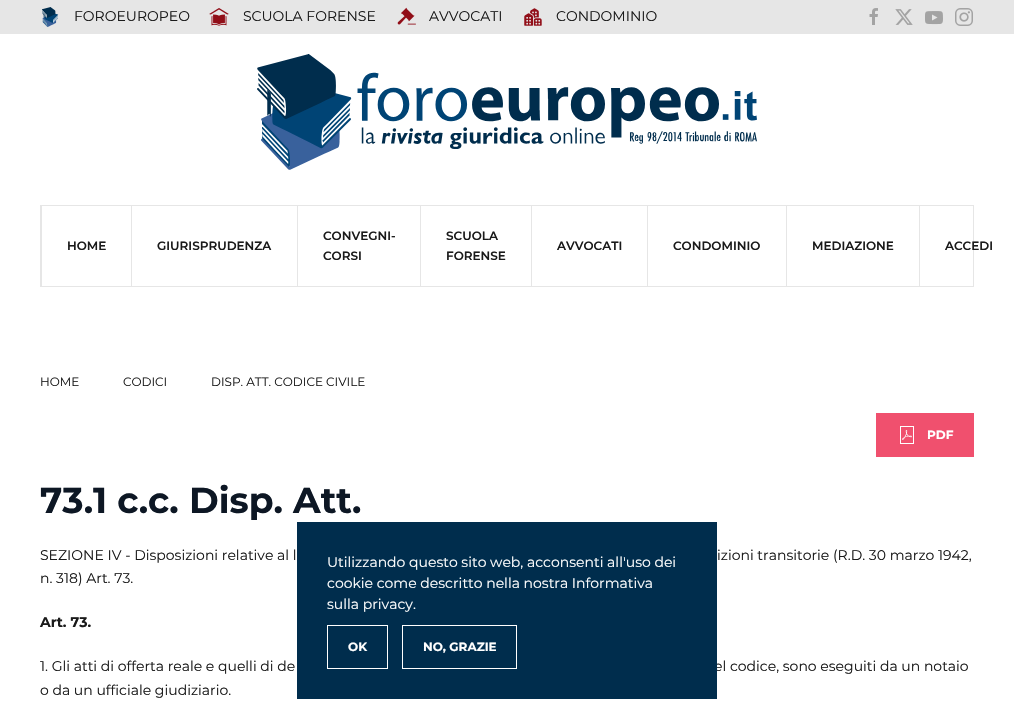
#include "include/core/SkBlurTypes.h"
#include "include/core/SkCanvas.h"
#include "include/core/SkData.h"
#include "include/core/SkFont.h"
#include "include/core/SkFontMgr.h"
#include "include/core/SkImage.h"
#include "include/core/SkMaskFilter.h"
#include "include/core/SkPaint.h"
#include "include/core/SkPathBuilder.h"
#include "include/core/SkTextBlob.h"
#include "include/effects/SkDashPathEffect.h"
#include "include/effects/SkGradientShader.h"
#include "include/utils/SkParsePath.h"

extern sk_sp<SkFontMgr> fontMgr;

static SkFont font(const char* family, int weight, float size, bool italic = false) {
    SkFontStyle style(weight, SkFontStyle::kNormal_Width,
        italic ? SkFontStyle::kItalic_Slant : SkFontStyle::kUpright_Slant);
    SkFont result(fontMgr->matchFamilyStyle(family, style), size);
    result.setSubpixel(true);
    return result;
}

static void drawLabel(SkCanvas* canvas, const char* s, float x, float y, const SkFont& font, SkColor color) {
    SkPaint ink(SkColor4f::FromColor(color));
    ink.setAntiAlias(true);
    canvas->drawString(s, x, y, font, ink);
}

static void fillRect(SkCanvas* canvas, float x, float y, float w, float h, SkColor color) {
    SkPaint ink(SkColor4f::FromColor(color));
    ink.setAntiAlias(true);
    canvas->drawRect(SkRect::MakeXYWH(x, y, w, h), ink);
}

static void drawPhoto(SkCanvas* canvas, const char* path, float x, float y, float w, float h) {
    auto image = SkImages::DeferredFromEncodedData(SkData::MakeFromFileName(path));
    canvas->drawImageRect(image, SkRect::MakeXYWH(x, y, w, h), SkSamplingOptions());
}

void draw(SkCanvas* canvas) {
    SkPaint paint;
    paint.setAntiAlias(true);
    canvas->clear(0xFFFFFFFF);
    fillRect(canvas, 0, 0, 1014, 34, 0xFFE6E6E6);
    drawPhoto(canvas, "assets/img1.png", 42, 7, 17, 20);
    SkFont font1 = font("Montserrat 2", 100, 14);
    drawLabel(canvas, "FOROEUROPEO", 74, 21, font1, 0xFF1A1A1A);
    drawPhoto(canvas, "assets/img2.png", 209, 8, 20, 18);
    drawLabel(canvas, "SCUOLA FORENSE", 243, 21, font1, 0xFF1A1A1A);
    drawPhoto(canvas, "assets/img3.png", 397, 7, 19, 18);
    drawLabel(canvas, "AVVOCATI", 429, 21, font1, 0xFF1A1A1A);
    drawPhoto(canvas, "assets/img4.png", 524, 8, 18, 18);
    drawLabel(canvas, "CONDOMINIO", 556, 21, font1, 0xFF1A1A1A);
    drawPhoto(canvas, "assets/img5.png", 869, 8, 9, 17);
    drawPhoto(canvas, "assets/img6.png", 895, 9, 18, 16);
    drawPhoto(canvas, "assets/img7.png", 925, 11, 18, 14);
    drawPhoto(canvas, "assets/img8.png", 955, 8, 18, 18);
    drawPhoto(canvas, "assets/img9.png", 257, 54, 500, 116);
    paint.setStroke(true);
    paint.setStrokeWidth(1);
    paint.setColor(0xFFE6E6E6);
    canvas->drawRect(SkRect::MakeXYWH(40.5f, 205.5f, 933, 81), paint);
    fillRect(canvas, 41, 206, 1, 80, 0xFFE6E6E6);
    SkFont font2 = font("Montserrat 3", 100, 12);
    drawLabel(canvas, "HOME", 67, 250, font2, 0xFF1A1A1A);
    fillRect(canvas, 131, 206, 1, 80, 0xFFE6E6E6);
    drawLabel(canvas, "GIURISPRUDENZA", 157, 250, font2, 0xFF1A1A1A);
    fillRect(canvas, 297, 206, 1, 80, 0xFFE6E6E6);
    drawLabel(canvas, "CONVEGNI-", 323, 240, font2, 0xFF1A1A1A);
    drawLabel(canvas, "CORSI", 323, 260, font2, 0xFF1A1A1A);
    fillRect(canvas, 420, 206, 1, 80, 0xFFE6E6E6);
    drawLabel(canvas, "SCUOLA", 446, 240, font2, 0xFF1A1A1A);
    drawLabel(canvas, "FORENSE", 446, 260, font2, 0xFF1A1A1A);
    fillRect(canvas, 531, 206, 1, 80, 0xFFE6E6E6);
    drawLabel(canvas, "AVVOCATI", 557, 250, font2, 0xFF1A1A1A);
    fillRect(canvas, 647, 206, 1, 80, 0xFFE6E6E6);
    drawLabel(canvas, "CONDOMINIO", 673, 250, font2, 0xFF1A1A1A);
    fillRect(canvas, 786, 206, 1, 80, 0xFFE6E6E6);
    drawLabel(canvas, "MEDIAZIONE", 812, 250, font2, 0xFF1A1A1A);
    fillRect(canvas, 919, 206, 1, 80, 0xFFE6E6E6);
    drawLabel(canvas, "ACCEDI", 945, 250, font2, 0xFF1A1A1A);
    SkFont font3 = font("Montserrat 2", 100, 12);
    drawLabel(canvas, "HOME", 40, 386, font3, 0xFF1A1A1A);
    drawLabel(canvas, "CODICI", 123, 386, font3, 0xFF1A1A1A);
    drawLabel(canvas, "DISP. ATT. CODICE CIVILE", 211, 386, font3, 0xFF1A1A1A);
    fillRect(canvas, 876, 413, 98, 44, 0xFFF0506E);
    drawPhoto(canvas, "assets/img10.png", 900, 426, 14, 18);
    SkFont font4 = font("Montserrat", 100, 12);
    drawLabel(canvas, "PDF", 927, 439, font4, 0xFFFFFFFF);
    SkFont font5 = font("Montserrat", 100, 36);
    drawLabel(canvas, "73.1 c.c. Disp. Att.", 40, 513, font5, 0xFF0D1724);
    drawLabel(canvas, "SEZIONE IV - Disposizioni relative al l", 40, 560, font1, 0xFF1A1A1A);
    drawLabel(canvas, "izioni transitorie (R.D. 30 marzo 1942,", 717, 560, font1, 0xFF1A1A1A);
    drawLabel(canvas, "n. 318) Art. 73.", 40, 583, font1, 0xFF1A1A1A);
    SkFont font6 = font("Montserrat", 100, 14);
    drawLabel(canvas, "Art. 73.", 40, 627, font6, 0xFF1A1A1A);
    drawLabel(canvas, "1. Gli atti di offerta reale e quelli di de", 40, 671, font1, 0xFF1A1A1A);
    drawLabel(canvas, "el codice, sono eseguiti da un notaio", 714, 671, font1, 0xFF1A1A1A);
    drawLabel(canvas, "o da un ufficiale giudiziario.", 40, 695, font1, 0xFF1A1A1A);
    fillRect(canvas, 297, 522, 420, 177, 0xFF002D4D);
    drawLabel(canvas, "Utilizzando questo sito web, acconsenti all'uso dei", 327, 567, font1, 0xFFFFFFFF);
    drawLabel(canvas, "cookie come descritto nella nostra Informativa", 327, 588, font1, 0xFFFFFFFF);
    drawLabel(canvas, "sulla privacy.", 327, 609, font1, 0xFFFFFFFF);
    paint.setColor(0xFFFFFFFF);
    canvas->drawRect(SkRect::MakeXYWH(327.5f, 625.5f, 60, 43), paint);
    drawLabel(canvas, "OK", 348, 651, font4, 0xFFFFFFFF);
    canvas->drawRect(SkRect::MakeXYWH(402.5f, 625.5f, 114, 43), paint);
    drawLabel(canvas, "NO, GRAZIE", 423, 651, font4, 0xFFFFFFFF);
}
